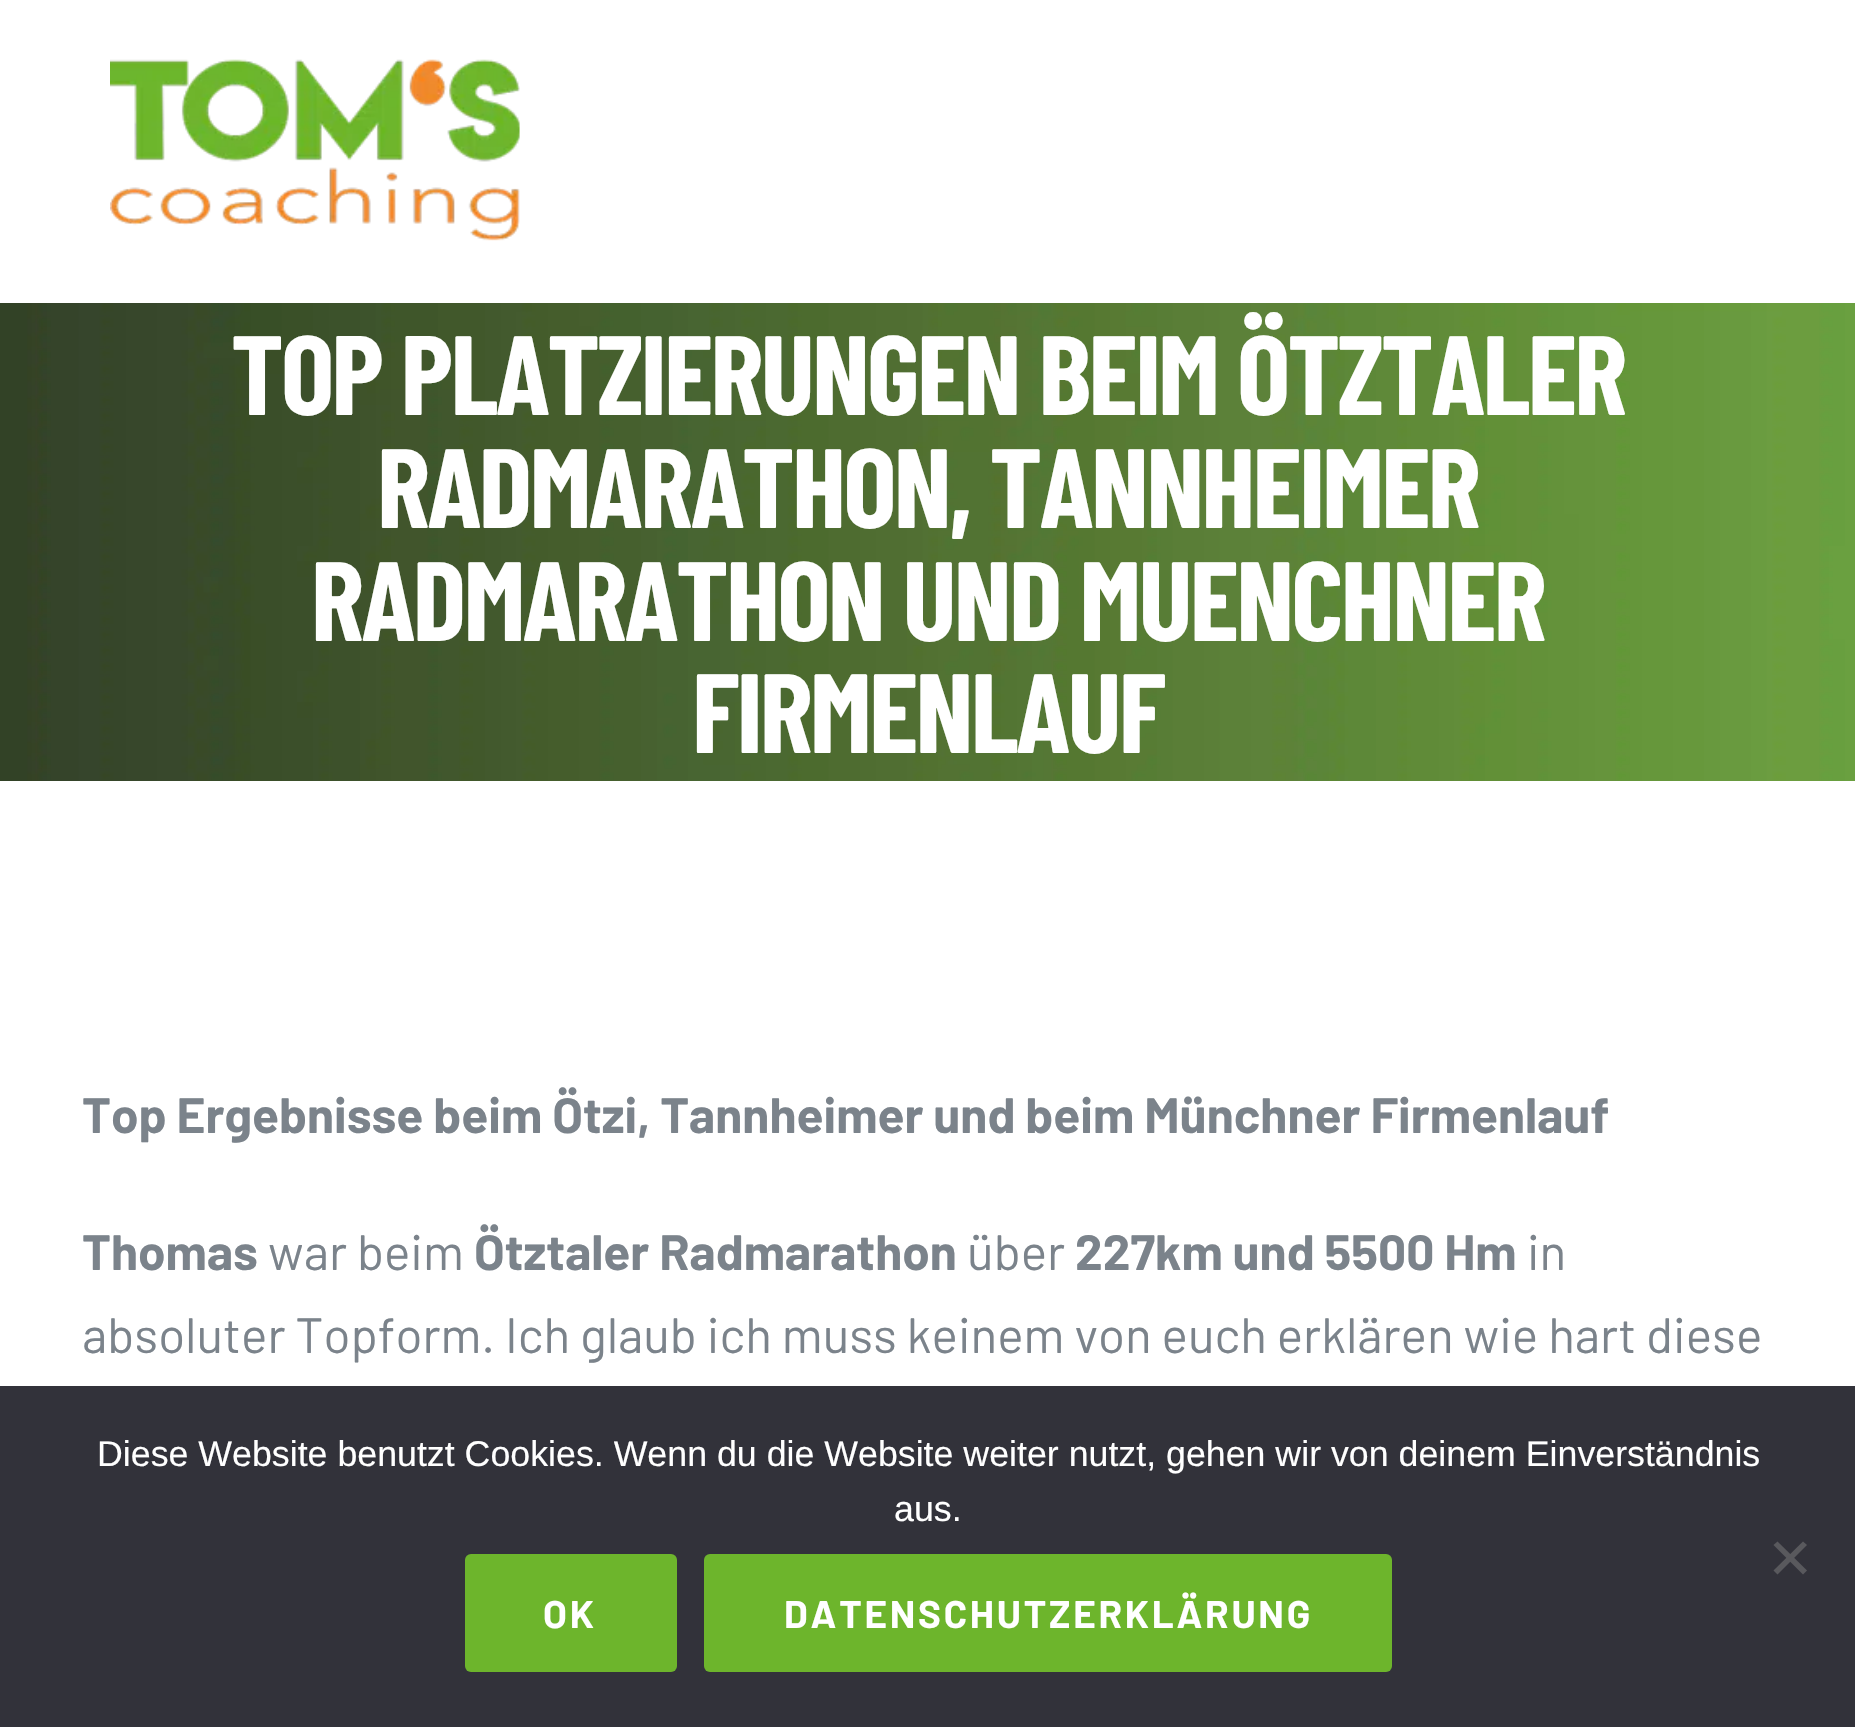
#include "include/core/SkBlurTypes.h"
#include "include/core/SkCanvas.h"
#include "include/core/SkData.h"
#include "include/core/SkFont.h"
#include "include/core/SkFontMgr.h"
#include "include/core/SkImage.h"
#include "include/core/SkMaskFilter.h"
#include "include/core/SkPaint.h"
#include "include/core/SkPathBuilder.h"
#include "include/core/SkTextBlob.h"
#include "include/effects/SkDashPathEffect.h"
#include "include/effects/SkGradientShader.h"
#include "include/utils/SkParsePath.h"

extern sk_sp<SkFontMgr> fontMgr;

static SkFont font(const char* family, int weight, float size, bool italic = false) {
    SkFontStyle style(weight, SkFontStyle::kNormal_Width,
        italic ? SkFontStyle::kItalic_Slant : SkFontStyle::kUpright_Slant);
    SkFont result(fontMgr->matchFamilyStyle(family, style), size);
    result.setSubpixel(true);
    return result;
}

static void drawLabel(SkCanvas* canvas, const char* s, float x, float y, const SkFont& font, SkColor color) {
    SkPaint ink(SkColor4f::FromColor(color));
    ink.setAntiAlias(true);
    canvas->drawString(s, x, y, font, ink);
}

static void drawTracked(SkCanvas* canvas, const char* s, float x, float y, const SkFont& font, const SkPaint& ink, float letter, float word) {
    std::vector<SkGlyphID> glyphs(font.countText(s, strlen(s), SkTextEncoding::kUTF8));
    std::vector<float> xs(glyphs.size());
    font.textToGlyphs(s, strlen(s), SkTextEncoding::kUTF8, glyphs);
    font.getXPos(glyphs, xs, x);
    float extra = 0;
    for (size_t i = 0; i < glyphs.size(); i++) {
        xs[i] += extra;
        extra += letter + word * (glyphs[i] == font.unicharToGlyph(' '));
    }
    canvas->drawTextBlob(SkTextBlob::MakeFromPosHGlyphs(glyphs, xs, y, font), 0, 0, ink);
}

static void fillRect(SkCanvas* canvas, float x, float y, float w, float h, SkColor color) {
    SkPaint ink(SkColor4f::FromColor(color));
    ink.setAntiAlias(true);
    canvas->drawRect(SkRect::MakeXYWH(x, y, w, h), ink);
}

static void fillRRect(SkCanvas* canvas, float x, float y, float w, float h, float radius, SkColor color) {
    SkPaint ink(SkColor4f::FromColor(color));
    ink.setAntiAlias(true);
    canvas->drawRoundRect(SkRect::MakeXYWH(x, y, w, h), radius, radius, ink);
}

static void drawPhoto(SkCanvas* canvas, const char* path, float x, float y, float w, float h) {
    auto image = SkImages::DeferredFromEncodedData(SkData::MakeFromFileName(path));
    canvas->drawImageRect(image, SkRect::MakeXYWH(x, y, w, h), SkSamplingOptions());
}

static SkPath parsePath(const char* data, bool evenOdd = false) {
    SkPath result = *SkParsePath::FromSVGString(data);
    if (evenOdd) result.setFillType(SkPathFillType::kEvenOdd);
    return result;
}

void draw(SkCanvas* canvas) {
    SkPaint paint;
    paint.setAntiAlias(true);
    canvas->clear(0xFFFFFFFF);
    drawPhoto(canvas, "assets/img1.png", 110, 59, 410, 182);
    drawPhoto(canvas, "assets/img2.png", 0, 303, 1855, 478);
    SkFont font1 = font("Barlow Condensed", 700, 112.6f);
    paint.setColor(0xFFFFFFFF);
    drawTracked(canvas, "TOP PLATZIERUNGEN BEIM ÖTZTALER", 231, 415, font1, paint, -2.75f, 0);
    drawTracked(canvas, "RADMARATHON, TANNHEIMER", 377, 528, font1, paint, -2.75f, 0);
    drawTracked(canvas, "RADMARATHON UND MUENCHNER", 311, 641, font1, paint, -2.75f, 0);
    drawTracked(canvas, "FIRMENLAUF", 692, 753, font1, paint, -2.75f, 0);
    SkFont font2 = font("Barlow", 700, 49.5f);
    drawLabel(canvas, "Top Ergebnisse beim Ötzi, Tannheimer und beim Münchner Firmenlauf", 82, 1133, font2, 0xFF7B838B);
    drawLabel(canvas, "Thomas", 82, 1270, font2, 0xFF7B838B);
    SkFont font3 = font("Barlow", 400, 49.5f);
    drawLabel(canvas, "war beim", 268, 1270, font3, 0xFF7B838B);
    drawLabel(canvas, "Ötztaler Radmarathon", 474, 1270, font2, 0xFF7B838B);
    drawLabel(canvas, "über", 967, 1270, font3, 0xFF7B838B);
    drawLabel(canvas, "227km und 5500 Hm", 1075, 1270, font2, 0xFF7B838B);
    drawLabel(canvas, "in", 1527, 1270, font3, 0xFF7B838B);
    drawLabel(canvas, "absoluter Topform. Ich glaub ich muss keinem von euch erklären wie hart diese", 82, 1353, font3, 0xFF7B838B);
    fillRect(canvas, 0, 1386, 1855, 341, 0xFF32323A);
    SkFont font4 = font("Liberation Sans", 400, 35.75f);
    drawLabel(canvas, "Diese Website benutzt Cookies. Wenn du die Website weiter nutzt, gehen wir von deinem Einverständnis", 97, 1466, font4, 0xFFFFFFFF);
    drawLabel(canvas, "aus.", 894, 1521, font4, 0xFFFFFFFF);
    paint.setColor(0xFF59595D);
    canvas->drawPath(parsePath("M1803 1541.5L1807 1545L1777.5 1574.5L1773.5 1570.5Z"), paint);
    canvas->drawPath(parsePath("M1773.5 1545L1777.5 1541.5L1807 1570.5L1803 1574.5Z"), paint);
    fillRRect(canvas, 465, 1554, 212, 118, 6, 0xFF6DB52C);
    SkFont font5 = font("Barlow", 700, 38.5f);
    paint.setColor(0xFFFFFFFF);
    drawTracked(canvas, "OK", 543, 1628, font5, paint, 2.75f, 0);
    fillRRect(canvas, 704, 1554, 688, 118, 6, 0xFF6DB52C);
    drawTracked(canvas, "DATENSCHUTZERKLÄRUNG", 784, 1628, font5, paint, 2.75f, 0);
}
